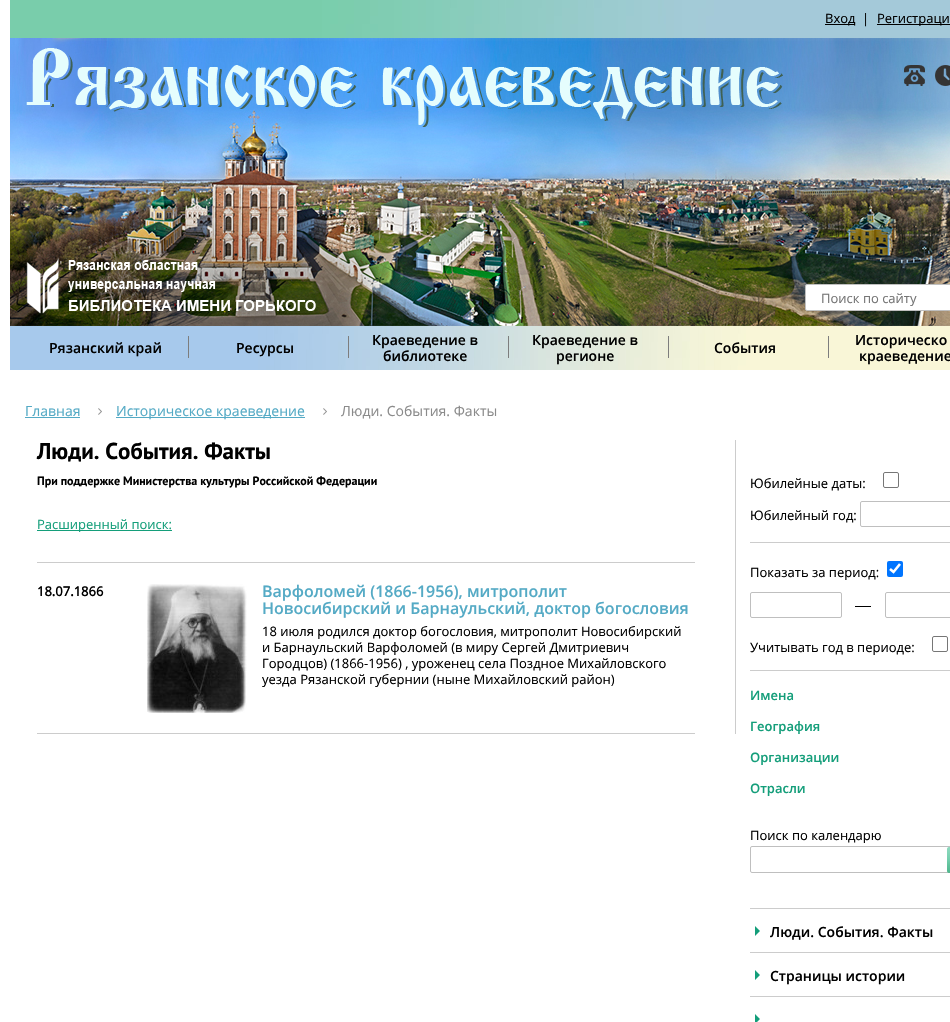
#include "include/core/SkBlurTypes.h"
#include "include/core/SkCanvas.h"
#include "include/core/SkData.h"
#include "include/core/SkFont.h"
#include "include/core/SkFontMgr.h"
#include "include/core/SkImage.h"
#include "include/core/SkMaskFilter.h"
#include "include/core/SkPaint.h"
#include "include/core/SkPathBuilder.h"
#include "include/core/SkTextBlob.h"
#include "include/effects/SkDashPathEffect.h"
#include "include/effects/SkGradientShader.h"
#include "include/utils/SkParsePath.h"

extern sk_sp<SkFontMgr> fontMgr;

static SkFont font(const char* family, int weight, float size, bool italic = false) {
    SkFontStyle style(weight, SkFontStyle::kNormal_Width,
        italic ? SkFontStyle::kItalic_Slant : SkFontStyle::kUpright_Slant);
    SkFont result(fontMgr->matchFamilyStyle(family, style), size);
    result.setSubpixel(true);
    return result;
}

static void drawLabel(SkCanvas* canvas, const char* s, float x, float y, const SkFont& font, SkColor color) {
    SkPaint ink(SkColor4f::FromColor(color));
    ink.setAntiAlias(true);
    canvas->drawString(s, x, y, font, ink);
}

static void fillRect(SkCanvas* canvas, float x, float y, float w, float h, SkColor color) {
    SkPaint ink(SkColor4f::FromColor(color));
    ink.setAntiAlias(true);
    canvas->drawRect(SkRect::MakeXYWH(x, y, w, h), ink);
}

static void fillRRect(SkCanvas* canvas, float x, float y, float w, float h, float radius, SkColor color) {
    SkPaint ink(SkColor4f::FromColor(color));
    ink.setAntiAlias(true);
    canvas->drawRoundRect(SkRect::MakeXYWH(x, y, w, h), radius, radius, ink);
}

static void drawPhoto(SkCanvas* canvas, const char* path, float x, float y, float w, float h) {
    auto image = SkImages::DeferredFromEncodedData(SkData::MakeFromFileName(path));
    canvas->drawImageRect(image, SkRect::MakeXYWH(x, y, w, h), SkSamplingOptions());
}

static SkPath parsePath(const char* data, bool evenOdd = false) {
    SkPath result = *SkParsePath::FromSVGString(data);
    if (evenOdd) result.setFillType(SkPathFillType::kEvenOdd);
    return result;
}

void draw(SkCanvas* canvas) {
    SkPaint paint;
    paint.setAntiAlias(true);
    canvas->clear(0xFFFFFFFF);
    drawPhoto(canvas, "assets/img1.png", 10, 0, 940, 38);
    fillRect(canvas, 825, 24, 30, 1, 0xFF000000);
    SkFont font1 = font("Open Sans", 400, 13);
    drawLabel(canvas, "Вход", 825, 23, font1, 0xFF000000);
    drawLabel(canvas, "|", 862, 23, font1, 0xFF000000);
    fillRect(canvas, 877, 24, 73, 1, 0xFF000000);
    drawLabel(canvas, "Регистраци", 877, 23, font1, 0xFF000000);
    drawPhoto(canvas, "assets/img2.png", 10, 38, 940, 288);
    drawPhoto(canvas, "assets/img3.png", 26, 48, 757, 79);
    drawPhoto(canvas, "assets/img4.png", 26, 257, 290, 57);
    drawPhoto(canvas, "assets/img5.png", 904, 65, 21, 21);
    drawPhoto(canvas, "assets/img6.png", 935, 65, 15, 21);
    paint.setColor(0xFFFFFFFF);
    canvas->drawRoundRect(SkRect::MakeXYWH(805.5f, 284.5f, 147, 26), 1.5f, 1.5f, paint);
    paint.setStroke(true);
    paint.setStrokeWidth(1);
    paint.setColor(0xFFBFBFBF);
    canvas->drawRoundRect(SkRect::MakeXYWH(805.5f, 284.5f, 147, 26), 1.5f, 1.5f, paint);
    drawLabel(canvas, "Поиск по сайту", 821, 303, font1, 0xFF757575);
    drawPhoto(canvas, "assets/img7.png", 10, 326, 940, 44);
    SkFont font2 = font("Open Sans", 600, 14);
    drawLabel(canvas, "Рязанский край", 49, 353, font2, 0xFF000000);
    fillRect(canvas, 188, 336, 1, 22, 0xFF7D7D7D);
    drawLabel(canvas, "Ресурсы", 236, 353, font2, 0xFF000000);
    fillRect(canvas, 348, 336, 1, 22, 0xFF7D7D7D);
    drawLabel(canvas, "Краеведение в", 372, 345, font2, 0xFF000000);
    drawLabel(canvas, "библиотеке", 383, 361, font2, 0xFF000000);
    fillRect(canvas, 508, 336, 1, 22, 0xFF7D7D7D);
    drawLabel(canvas, "Краеведение в", 532, 345, font2, 0xFF000000);
    drawLabel(canvas, "регионе", 556, 361, font2, 0xFF000000);
    fillRect(canvas, 668, 336, 1, 22, 0xFF7D7D7D);
    drawLabel(canvas, "События", 714, 353, font2, 0xFF000000);
    fillRect(canvas, 828, 336, 1, 22, 0xFF7D7D7D);
    drawLabel(canvas, "Историческо", 855, 345, font2, 0xFF000000);
    drawLabel(canvas, "краеведение", 859, 361, font2, 0xFF000000);
    SkFont font3 = font("Open Sans", 400, 14);
    drawLabel(canvas, "Главная", 25, 416, font3, 0xFF54AAC5);
    fillRect(canvas, 25, 417, 55, 1, 0xFF54AAC5);
    drawPhoto(canvas, "assets/img8.png", 98, 408, 4, 7);
    fillRect(canvas, 116, 417, 189, 1, 0xFF54AAC5);
    drawLabel(canvas, "Историческое краеведение", 116, 416, font3, 0xFF54AAC5);
    drawPhoto(canvas, "assets/img8.png", 323, 408, 4, 7);
    drawLabel(canvas, "Люди. События. Факты", 341, 416, font3, 0xFF8B8B8B);
    fillRect(canvas, 735, 440, 1, 294, 0xFFCCCCCC);
    SkFont font4 = font("PT Sans", 700, 23);
    drawLabel(canvas, "Люди. События. Факты", 37, 459, font4, 0xFF000000);
    SkFont font5 = font("PT Sans", 700, 12);
    drawLabel(canvas, "При поддержке Министерства культуры Российской Федерации", 37, 485, font5, 0xFF000000);
    fillRect(canvas, 37, 562, 658, 1, 0xFFCCCCCC);
    fillRect(canvas, 37, 530, 135, 1, 0xFF149E7A);
    drawLabel(canvas, "Расширенный поиск:", 37, 529, font1, 0xFF149E7A);
    fillRect(canvas, 37, 733, 658, 1, 0xFFCCCCCC);
    SkFont font6 = font("Open Sans", 700, 13);
    drawLabel(canvas, "18.07.1866", 37, 596, font6, 0xFF000000);
    drawPhoto(canvas, "assets/img9.png", 147, 584, 100, 129);
    SkFont font7 = font("Open Sans", 600, 16);
    drawLabel(canvas, "Варфоломей (1866-1956), митрополит", 262, 597, font7, 0xFF54AAC5);
    drawLabel(canvas, "Новосибирский и Барнаульский, доктор богословия", 262, 614, font7, 0xFF54AAC5);
    drawLabel(canvas, "18 июля родился доктор богословия, митрополит Новосибирский", 262, 636, font1, 0xFF000000);
    drawLabel(canvas, "и Барнаульский Варфоломей (в миру Сергей Дмитриевич", 262, 652, font1, 0xFF000000);
    drawLabel(canvas, "Городцов) (1866-1956) , уроженец села Поздное Михайловского", 262, 668, font1, 0xFF000000);
    drawLabel(canvas, "уезда Рязанской губернии (ныне Михайловский район)", 262, 684, font1, 0xFF000000);
    fillRect(canvas, 750, 542, 200, 1, 0xFFCCCCCC);
    drawLabel(canvas, "Юбилейные даты:", 750, 488, font1, 0xFF000000);
    paint.setColor(0xFF767676);
    canvas->drawRoundRect(SkRect::MakeXYWH(883.5f, 472.5f, 15, 15), 1.5f, 1.5f, paint);
    drawLabel(canvas, "Юбилейный год:", 750, 520, font1, 0xFF000000);
    paint.setColor(0xFFBFBFBF);
    canvas->drawRoundRect(SkRect::MakeXYWH(860.5f, 501.5f, 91, 25), 1.5f, 1.5f, paint);
    drawLabel(canvas, "Показать за период:", 750, 577, font1, 0xFF000000);
    fillRRect(canvas, 887, 561, 16, 16, 2, 0xFF0075FF);
    paint.setStrokeWidth(2.6f);
    paint.setColor(0xFFFFFFFF);
    canvas->drawPath(parsePath("M890 569L893.5 572L900 564"), paint);
    paint.setStrokeWidth(1);
    paint.setColor(0xFFBFBFBF);
    canvas->drawRoundRect(SkRect::MakeXYWH(750.5f, 592.5f, 91, 25), 1.5f, 1.5f, paint);
    fillRect(canvas, 855, 606, 16, 1, 0xFF000000);
    canvas->drawRoundRect(SkRect::MakeXYWH(885.5f, 592.5f, 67, 25), 1.5f, 1.5f, paint);
    drawLabel(canvas, "Учитывать год в периоде:", 750, 652, font1, 0xFF000000);
    paint.setColor(0xFF767676);
    canvas->drawRoundRect(SkRect::MakeXYWH(932.5f, 636.5f, 15, 15), 1.5f, 1.5f, paint);
    fillRect(canvas, 750, 670, 200, 1, 0xFFCCCCCC);
    SkFont font8 = font("Open Sans", 600, 13);
    drawLabel(canvas, "Имена", 750, 700, font8, 0xFF149E7A);
    drawLabel(canvas, "География", 750, 731, font8, 0xFF149E7A);
    drawLabel(canvas, "Организации", 750, 762, font8, 0xFF149E7A);
    drawLabel(canvas, "Отрасли", 750, 793, font8, 0xFF149E7A);
    drawLabel(canvas, "Поиск по календарю", 750, 840, font1, 0xFF000000);
    paint.setColor(0xFFBFBFBF);
    canvas->drawRoundRect(SkRect::MakeXYWH(750.5f, 846.5f, 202, 26), 1.5f, 1.5f, paint);
    drawPhoto(canvas, "assets/img10.png", 947, 847, 3, 26);
    fillRect(canvas, 750, 908, 200, 1, 0xFFCCCCCC);
    paint.setStroke(false);
    paint.setColor(0xFF139E7A);
    canvas->drawPath(parsePath("M755 936V926L760 931Z"), paint);
    drawLabel(canvas, "Люди. События. Факты", 770, 937, font2, 0xFF000000);
    fillRect(canvas, 750, 952, 200, 1, 0xFFCCCCCC);
    fillRect(canvas, 750, 996, 200, 1, 0xFFCCCCCC);
    canvas->drawPath(parsePath("M755 980V970L760 975ZM755 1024V1014L760 1019Z"), paint);
    drawLabel(canvas, "Страницы истории", 770, 981, font2, 0xFF000000);
}
